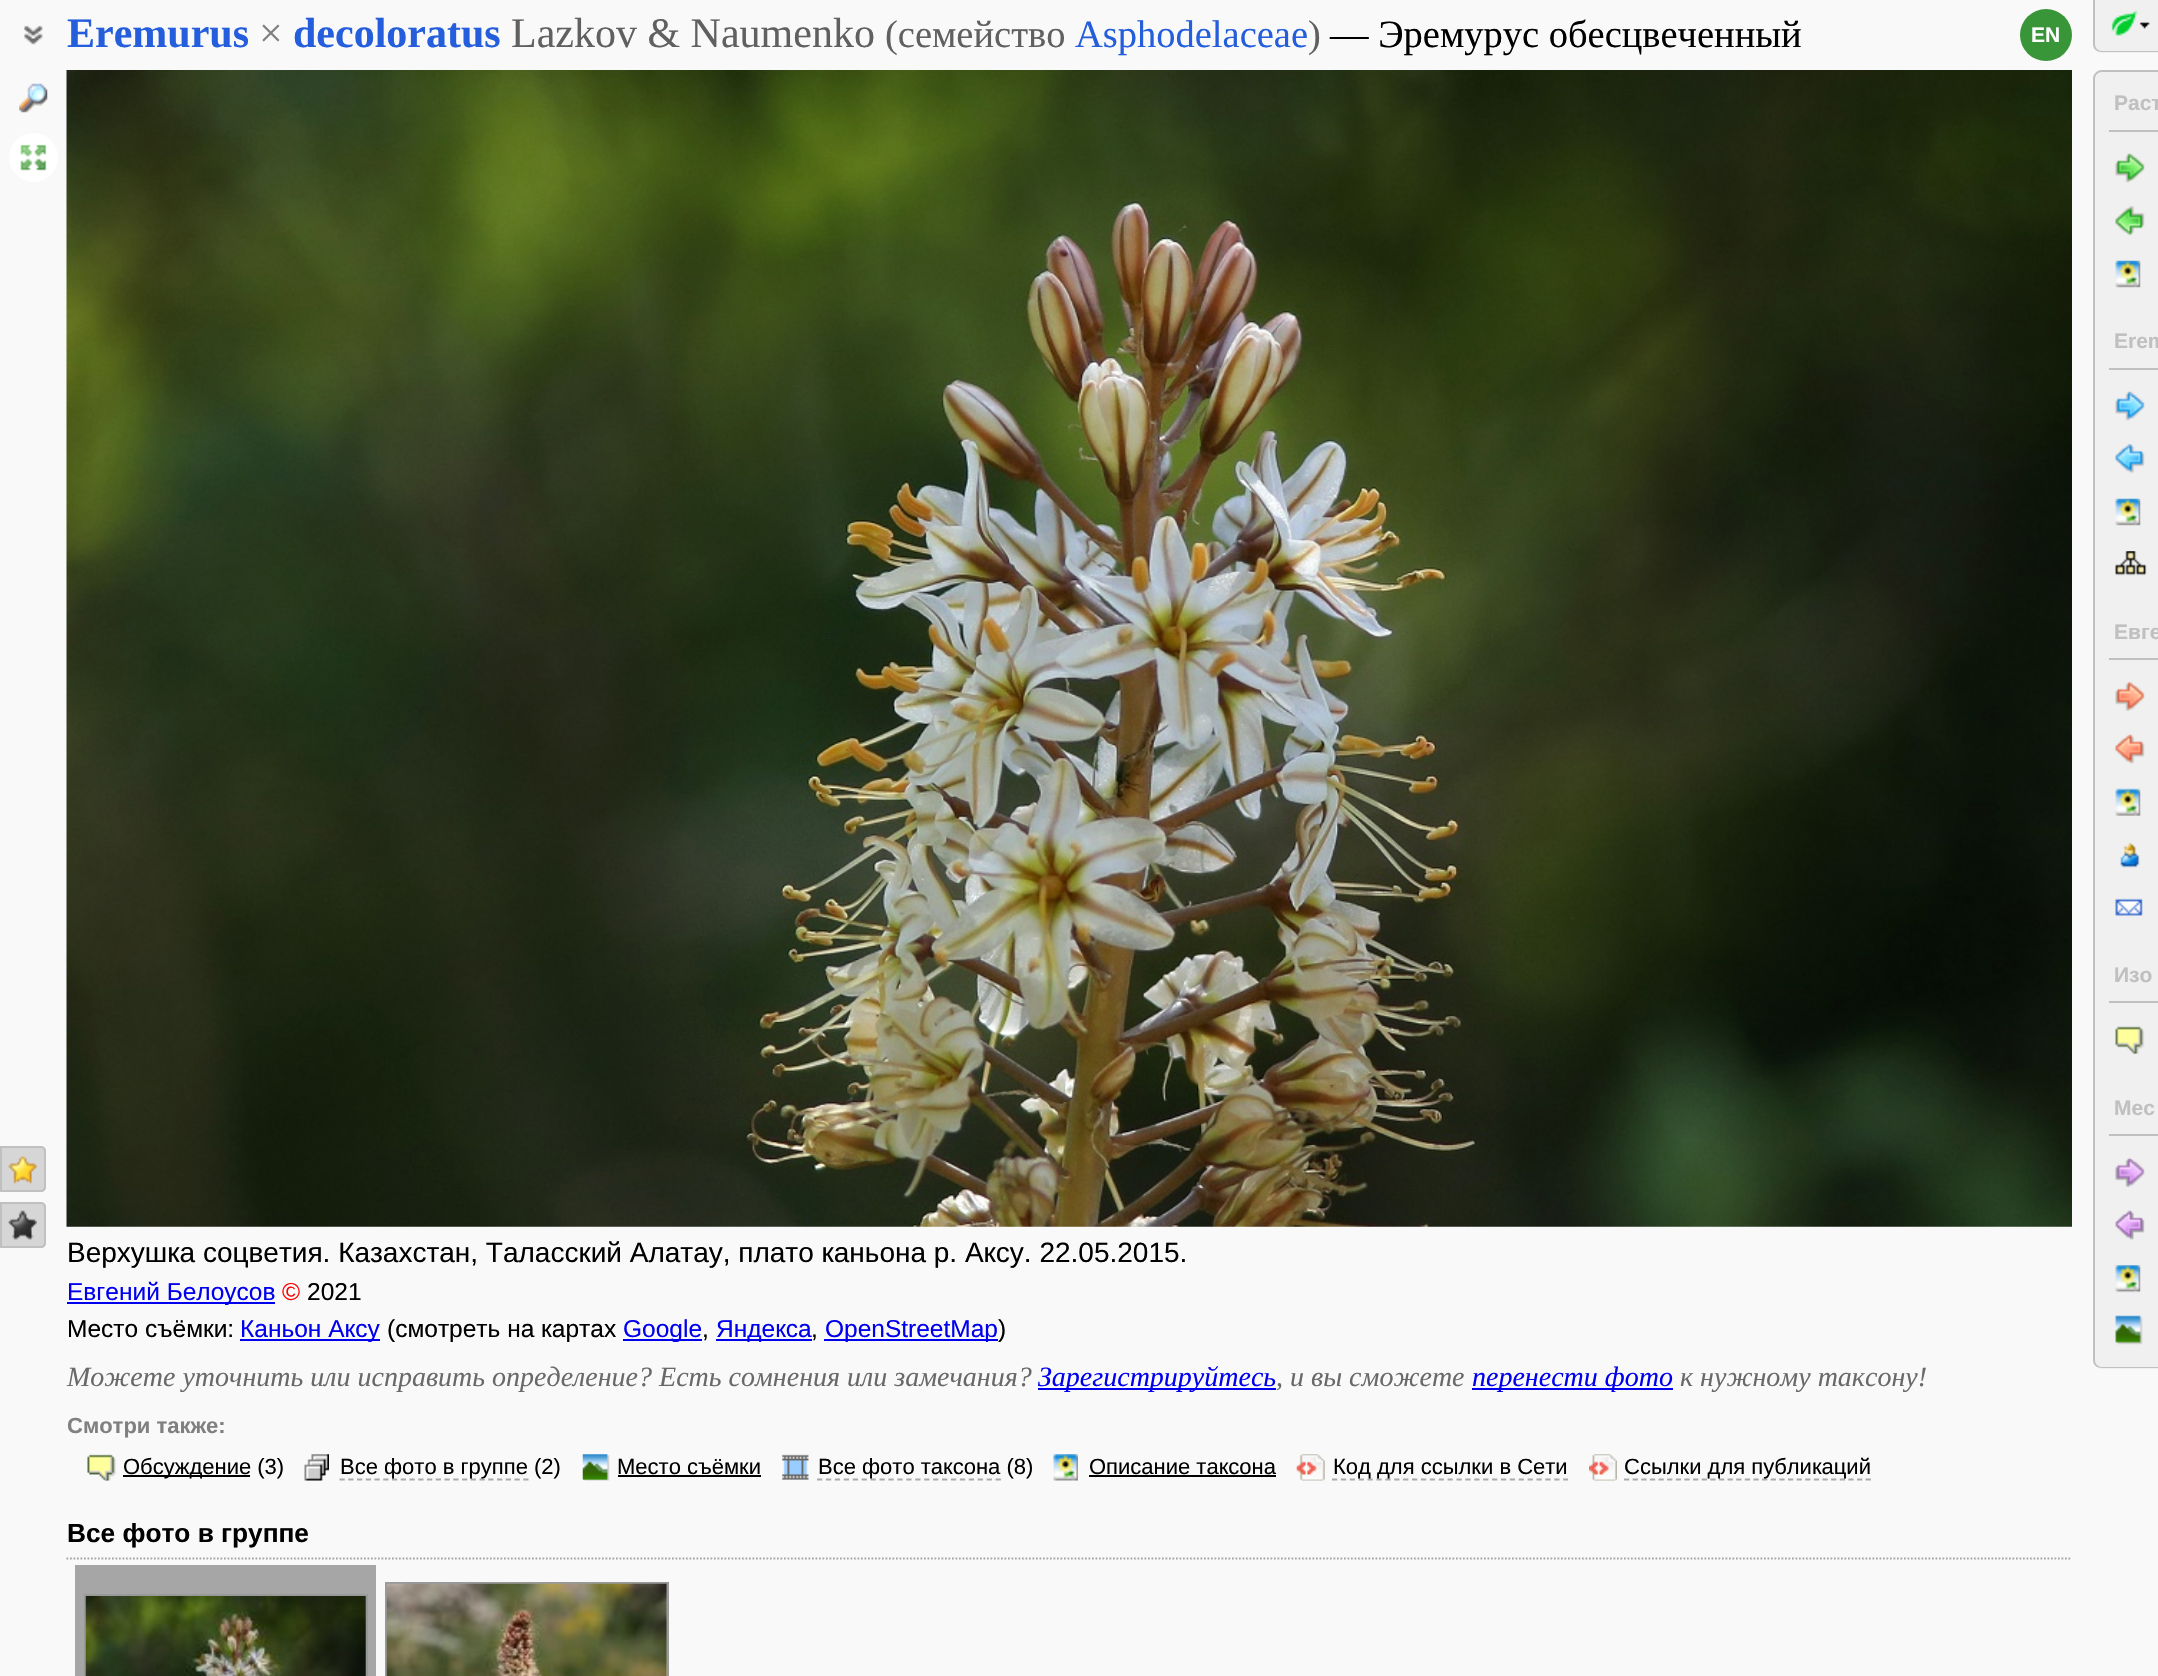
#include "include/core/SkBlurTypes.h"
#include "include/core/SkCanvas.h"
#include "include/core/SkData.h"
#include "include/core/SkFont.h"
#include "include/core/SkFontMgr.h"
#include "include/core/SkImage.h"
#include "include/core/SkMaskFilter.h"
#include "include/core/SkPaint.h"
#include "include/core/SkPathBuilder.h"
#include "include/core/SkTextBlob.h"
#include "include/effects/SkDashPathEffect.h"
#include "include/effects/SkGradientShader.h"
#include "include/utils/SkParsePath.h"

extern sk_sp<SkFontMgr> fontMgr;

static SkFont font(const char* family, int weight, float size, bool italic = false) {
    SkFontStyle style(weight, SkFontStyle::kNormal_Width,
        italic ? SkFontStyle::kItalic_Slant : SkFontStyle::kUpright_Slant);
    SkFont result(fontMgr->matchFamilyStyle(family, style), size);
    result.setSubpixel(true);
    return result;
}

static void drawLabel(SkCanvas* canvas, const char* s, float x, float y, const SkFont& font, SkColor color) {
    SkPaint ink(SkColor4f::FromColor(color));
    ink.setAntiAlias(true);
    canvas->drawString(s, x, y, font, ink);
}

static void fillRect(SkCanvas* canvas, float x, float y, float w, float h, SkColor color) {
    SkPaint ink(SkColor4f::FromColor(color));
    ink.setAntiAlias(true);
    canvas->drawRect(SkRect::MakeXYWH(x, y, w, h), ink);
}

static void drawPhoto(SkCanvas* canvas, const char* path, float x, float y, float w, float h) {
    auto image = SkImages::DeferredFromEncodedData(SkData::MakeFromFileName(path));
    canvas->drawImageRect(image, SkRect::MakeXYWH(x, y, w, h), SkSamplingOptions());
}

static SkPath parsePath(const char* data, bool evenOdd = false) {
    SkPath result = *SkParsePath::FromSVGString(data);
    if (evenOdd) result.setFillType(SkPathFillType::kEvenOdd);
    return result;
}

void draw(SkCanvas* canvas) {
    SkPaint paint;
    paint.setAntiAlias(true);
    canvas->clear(0xFFF9F9F9);
    drawPhoto(canvas, "assets/img1.png", 24, 25, 19, 20);
    SkFont font1 = font("Liberation Serif", 700, 42);
    drawLabel(canvas, "Eremurus", 67, 47, font1, 0xFF245EDC);
    SkFont font2 = font("Liberation Serif", 400, 42);
    drawLabel(canvas, "×", 259, 47, font2, 0xFF808080);
    drawLabel(canvas, "decoloratus", 293, 47, font1, 0xFF245EDC);
    drawLabel(canvas, "Lazkov & Naumenko", 511, 47, font2, 0xFF606060);
    SkFont font3 = font("Liberation Serif", 400, 38.5f);
    drawLabel(canvas, "(семейство", 885, 47, font3, 0xFF606060);
    drawLabel(canvas, "Asphodelaceae", 1075, 47, font3, 0xFF245EDC);
    drawLabel(canvas, ")", 1308, 47, font3, 0xFF606060);
    drawLabel(canvas, "— Эремурус обесцвеченный", 1330, 47, font3, 0xFF000000);
    paint.setColor(0xFF389638);
    canvas->drawCircle(2046, 35, 26, paint);
    SkFont font4 = font("Liberation Sans", 700, 21);
    drawLabel(canvas, "EN", 2031, 42, font4, 0xFFFEFEFE);
    drawPhoto(canvas, "assets/img2.png", 19, 83, 29, 30);
    paint.setColor(0xFFFFFFFF);
    canvas->drawCircle(33.5f, 157.5f, 24.5f, paint);
    drawPhoto(canvas, "assets/img3.png", 20, 144, 27, 27);
    paint.setColor(0xFFD6D6D6);
    canvas->drawPath(parsePath("M0 1146H41C44 1146 46 1148 46 1151V1187C46 1190 44 1192 41 1192H0Z"), paint);
    drawPhoto(canvas, "assets/img4.png", 8, 1156, 29, 28);
    paint.setStroke(true);
    paint.setStrokeWidth(2);
    paint.setColor(0xFFC0C0C0);
    canvas->drawPath(parsePath("M1 1147H41C43 1147 45 1149 45 1151V1187C45 1189 43 1191 41 1191H1Z"), paint);
    paint.setStroke(false);
    paint.setColor(0xFFD6D6D6);
    canvas->drawPath(parsePath("M0 1202H41C44 1202 46 1204 46 1207V1243C46 1246 44 1248 41 1248H0Z"), paint);
    drawPhoto(canvas, "assets/img5.png", 8, 1210, 29, 30);
    paint.setStroke(true);
    paint.setColor(0xFFC0C0C0);
    canvas->drawPath(parsePath("M1 1203H41C43 1203 45 1205 45 1207V1243C45 1245 43 1247 41 1247H1Z"), paint);
    paint.setStroke(false);
    paint.setColor(0xFFF0F0F0);
    canvas->drawPath(parsePath("M2093 0H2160V53H2102C2097 53 2093 49 2093 44Z"), paint);
    drawPhoto(canvas, "assets/img6.png", 2111, 10, 27, 26);
    paint.setColor(0xFFC0C0C0);
    canvas->drawPath(parsePath("M2093 0H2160V52H2102C2097 52 2093 49 2093 44ZM2095 0H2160V51H2102C2098 51 2095 48 2095 44Z", true), paint);
    drawPhoto(canvas, "assets/img7.png", 2139, 22, 11, 7);
    paint.setColor(0xFFF0F0F0);
    canvas->drawPath(parsePath("M2102 70H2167V1369H2102C2097 1369 2093 1365 2093 1360V79C2093 74 2097 70 2102 70Z"), paint);
    paint.setColor(0xFFC0C0C0);
    canvas->drawPath(parsePath("M2102 70H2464V1368H2102C2097 1368 2093 1365 2093 1360V79C2093 74 2097 70 2102 70ZM2102 72H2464V1367H2102C2098 1367 2095 1364 2095 1360V79C2095 75 2098 72 2102 72Z", true), paint);
    fillRect(canvas, 2109, 130, 49, 2, 0xFFC0C0C0);
    drawLabel(canvas, "Раст", 2114, 110, font4, 0xFFC0C0C0);
    drawPhoto(canvas, "assets/img8.png", 2115, 153, 30, 30);
    drawPhoto(canvas, "assets/img9.png", 2115, 206, 30, 30);
    drawPhoto(canvas, "assets/img10.png", 2115, 260, 26, 28);
    fillRect(canvas, 2109, 368, 49, 2, 0xFFC0C0C0);
    drawLabel(canvas, "Erem", 2114, 348, font4, 0xFFC0C0C0);
    drawPhoto(canvas, "assets/img11.png", 2115, 391, 30, 30);
    drawPhoto(canvas, "assets/img12.png", 2115, 444, 30, 30);
    drawPhoto(canvas, "assets/img10.png", 2115, 498, 26, 28);
    drawPhoto(canvas, "assets/img13.png", 2115, 551, 32, 25);
    fillRect(canvas, 2109, 658, 49, 2, 0xFFC0C0C0);
    drawLabel(canvas, "Евге", 2114, 639, font4, 0xFFC0C0C0);
    drawPhoto(canvas, "assets/img14.png", 2115, 681, 30, 30);
    drawPhoto(canvas, "assets/img15.png", 2115, 734, 30, 30);
    drawPhoto(canvas, "assets/img16.png", 2115, 788, 26, 28);
    drawPhoto(canvas, "assets/img17.png", 2120, 842, 20, 26);
    drawPhoto(canvas, "assets/img18.png", 2115, 898, 28, 18);
    fillRect(canvas, 2109, 1001, 49, 2, 0xFFC0C0C0);
    drawLabel(canvas, "Изо", 2114, 982, font4, 0xFFC0C0C0);
    drawPhoto(canvas, "assets/img19.png", 2115, 1026, 30, 28);
    fillRect(canvas, 2109, 1134, 49, 2, 0xFFC0C0C0);
    drawLabel(canvas, "Мес", 2114, 1115, font4, 0xFFC0C0C0);
    drawPhoto(canvas, "assets/img20.png", 2115, 1157, 30, 30);
    drawPhoto(canvas, "assets/img21.png", 2115, 1210, 30, 30);
    drawPhoto(canvas, "assets/img22.png", 2115, 1265, 26, 28);
    drawPhoto(canvas, "assets/img23.png", 2115, 1315, 28, 30);
    drawPhoto(canvas, "assets/img24.png", 66, 70, 2006, 1157);
    SkFont font5 = font("Liberation Sans", 400, 28);
    drawLabel(canvas, "Верхушка соцветия. Казахстан, Таласский Алатау, плато каньона р. Аксу. 22.05.2015.", 67, 1262, font5, 0xFF000000);
    fillRect(canvas, 67, 1302, 208, 2, 0xFF0000EE);
    SkFont font6 = font("Liberation Sans", 400, 24.5f);
    drawLabel(canvas, "Евгений Белоусов", 67, 1300, font6, 0xFF0000EE);
    drawLabel(canvas, "©", 282, 1300, font6, 0xFFFF0000);
    drawLabel(canvas, "2021", 307, 1300, font6, 0xFF000000);
    drawLabel(canvas, "Место съёмки:", 67, 1337, font6, 0xFF000000);
    fillRect(canvas, 240, 1339, 140, 2, 0xFF0000EE);
    drawLabel(canvas, "Каньон Аксу", 240, 1337, font6, 0xFF0000EE);
    drawLabel(canvas, "(смотреть на картах", 387, 1337, font6, 0xFF000000);
    fillRect(canvas, 623, 1339, 79, 2, 0xFF0000EE);
    drawLabel(canvas, "Google", 623, 1337, font6, 0xFF0000EE);
    drawLabel(canvas, ",", 702, 1337, font6, 0xFF000000);
    fillRect(canvas, 716, 1339, 96, 2, 0xFF0000EE);
    drawLabel(canvas, "Яндекса", 716, 1337, font6, 0xFF0000EE);
    drawLabel(canvas, ",", 811, 1337, font6, 0xFF000000);
    fillRect(canvas, 824, 1339, 174, 2, 0xFF0000EE);
    drawLabel(canvas, "OpenStreetMap", 825, 1337, font6, 0xFF0000EE);
    drawLabel(canvas, ")", 998, 1337, font6, 0xFF000000);
    SkFont font7 = font("Liberation Serif", 400, 28, true);
    drawLabel(canvas, "Можете уточнить или исправить определение? Есть сомнения или замечания?", 67, 1386, font7, 0xFF696969);
    fillRect(canvas, 1038, 1388, 238, 2, 0xFF0000EE);
    drawLabel(canvas, "Зарегистрируйтесь", 1038, 1386, font7, 0xFF0000EE);
    drawLabel(canvas, ", и вы сможете", 1276, 1386, font7, 0xFF696969);
    fillRect(canvas, 1472, 1388, 201, 2, 0xFF0000EE);
    drawLabel(canvas, "перенести фото", 1472, 1386, font7, 0xFF0000EE);
    drawLabel(canvas, "к нужному таксону!", 1680, 1386, font7, 0xFF696969);
    SkFont font8 = font("Liberation Sans", 700, 22);
    drawLabel(canvas, "Смотри также:", 67, 1433, font8, 0xFF808080);
    drawPhoto(canvas, "assets/img25.png", 87, 1454, 29, 27);
    fillRect(canvas, 123, 1475, 127, 2, 0xFF000000);
    SkFont font9 = font("Liberation Sans", 400, 22);
    drawLabel(canvas, "Обсуждение (3)", 123, 1474, font9, 0xFF000000);
    drawPhoto(canvas, "assets/img26.png", 304, 1454, 25, 27);
    paint.setStroke(true);
    paint.setStrokeWidth(1.8f);
    paint.setColor(0xFFA9A9A9);
    paint.setPathEffect(SkDashPathEffect::Make({{5.25f, 3.5f}}, 0));
    canvas->drawPath(parsePath("M339.5 1479.5H528.5"), paint);
    paint.setPathEffect(nullptr);
    drawLabel(canvas, "Все фото в группе (2)", 340, 1474, font9, 0xFF000000);
    drawPhoto(canvas, "assets/img27.png", 582, 1454, 28, 27);
    drawLabel(canvas, "Место съёмки", 617, 1474, font9, 0xFF000000);
    fillRect(canvas, 618, 1475, 143, 2, 0xFF000000);
    drawPhoto(canvas, "assets/img28.png", 782, 1454, 27, 26);
    paint.setPathEffect(SkDashPathEffect::Make({{5.25f, 3.68f}}, 0));
    canvas->drawPath(parsePath("M817 1479.5H1001"), paint);
    paint.setPathEffect(nullptr);
    drawLabel(canvas, "Все фото таксона (8)", 818, 1474, font9, 0xFF000000);
    drawPhoto(canvas, "assets/img29.png", 1053, 1454, 25, 27);
    drawLabel(canvas, "Описание таксона", 1089, 1474, font9, 0xFF000000);
    fillRect(canvas, 1089, 1475, 187, 2, 0xFF000000);
    drawPhoto(canvas, "assets/img30.png", 1296, 1454, 29, 27);
    paint.setPathEffect(SkDashPathEffect::Make({{5.25f, 3.64f}}, 0));
    canvas->drawPath(parsePath("M1332 1479.5H1568"), paint);
    paint.setPathEffect(nullptr);
    drawLabel(canvas, "Код для ссылки в Сети", 1333, 1474, font9, 0xFF000000);
    drawPhoto(canvas, "assets/img31.png", 1589, 1454, 28, 27);
    paint.setPathEffect(SkDashPathEffect::Make({{5.25f, 3.38f}}, 0));
    canvas->drawPath(parsePath("M1624 1479.5H1871"), paint);
    paint.setPathEffect(nullptr);
    drawLabel(canvas, "Ссылки для публикаций", 1624, 1474, font9, 0xFF000000);
    paint.setColor(0xFFA6A6A6);
    paint.setPathEffect(SkDashPathEffect::Make({{1.75f, 1.75f}}, 0));
    canvas->drawPath(parsePath("M66.5 1558.5H2072"), paint);
    paint.setPathEffect(nullptr);
    SkFont font10 = font("Liberation Sans", 700, 26.25f);
    drawLabel(canvas, "Все фото в группе", 67, 1542, font10, 0xFF000000);
    fillRect(canvas, 75, 1565, 301, 111, 0xFFA6A6A6);
    paint.setStrokeWidth(2);
    paint.setColor(0xFF999999);
    canvas->drawRect(SkRect::MakeXYWH(85, 1595, 282, 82), paint);
    drawPhoto(canvas, "assets/img32.png", 85, 1596, 281, 80);
    canvas->drawRect(SkRect::MakeXYWH(386, 1583, 282, 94), paint);
    drawPhoto(canvas, "assets/img33.png", 386, 1583, 281, 93);
}
